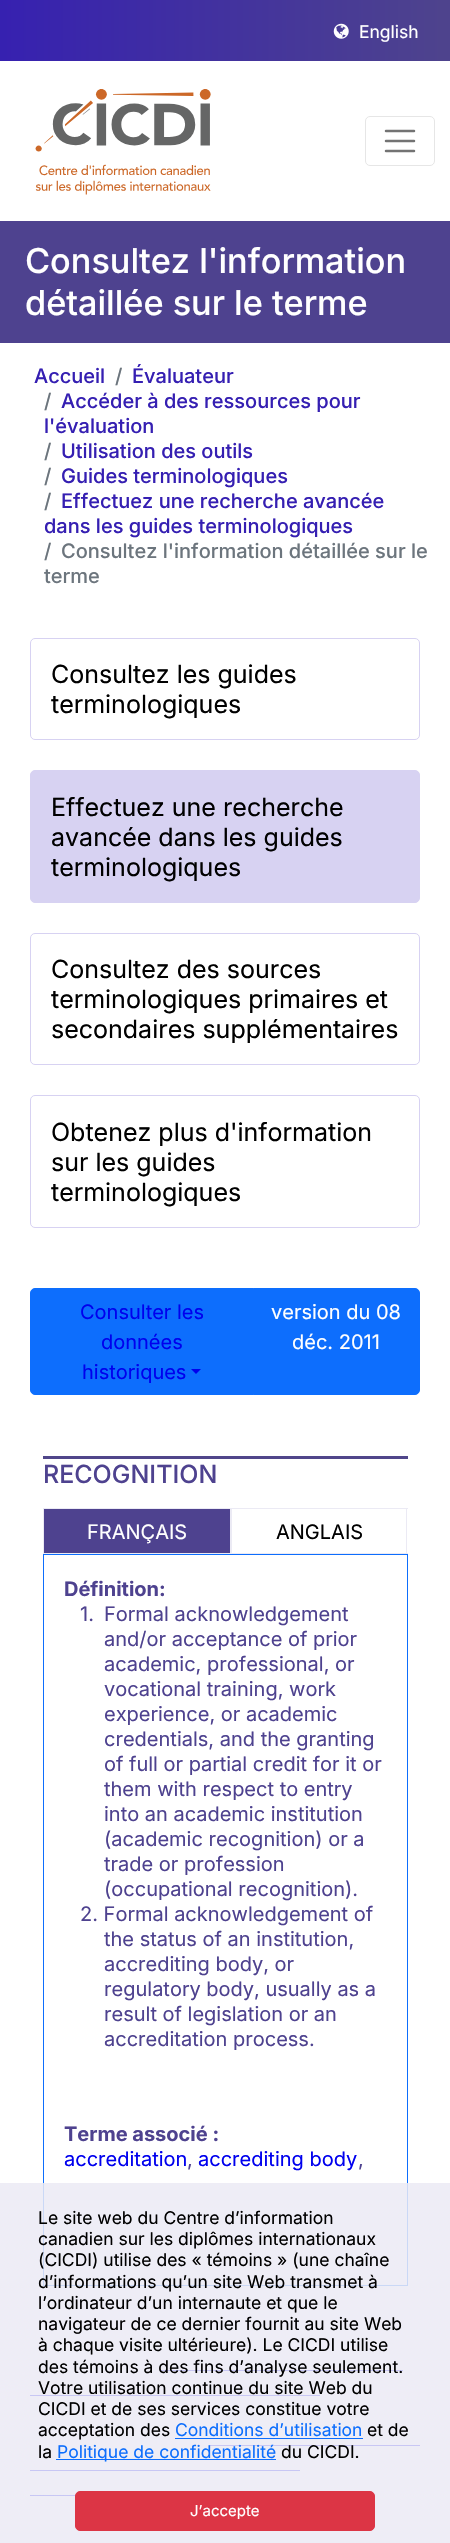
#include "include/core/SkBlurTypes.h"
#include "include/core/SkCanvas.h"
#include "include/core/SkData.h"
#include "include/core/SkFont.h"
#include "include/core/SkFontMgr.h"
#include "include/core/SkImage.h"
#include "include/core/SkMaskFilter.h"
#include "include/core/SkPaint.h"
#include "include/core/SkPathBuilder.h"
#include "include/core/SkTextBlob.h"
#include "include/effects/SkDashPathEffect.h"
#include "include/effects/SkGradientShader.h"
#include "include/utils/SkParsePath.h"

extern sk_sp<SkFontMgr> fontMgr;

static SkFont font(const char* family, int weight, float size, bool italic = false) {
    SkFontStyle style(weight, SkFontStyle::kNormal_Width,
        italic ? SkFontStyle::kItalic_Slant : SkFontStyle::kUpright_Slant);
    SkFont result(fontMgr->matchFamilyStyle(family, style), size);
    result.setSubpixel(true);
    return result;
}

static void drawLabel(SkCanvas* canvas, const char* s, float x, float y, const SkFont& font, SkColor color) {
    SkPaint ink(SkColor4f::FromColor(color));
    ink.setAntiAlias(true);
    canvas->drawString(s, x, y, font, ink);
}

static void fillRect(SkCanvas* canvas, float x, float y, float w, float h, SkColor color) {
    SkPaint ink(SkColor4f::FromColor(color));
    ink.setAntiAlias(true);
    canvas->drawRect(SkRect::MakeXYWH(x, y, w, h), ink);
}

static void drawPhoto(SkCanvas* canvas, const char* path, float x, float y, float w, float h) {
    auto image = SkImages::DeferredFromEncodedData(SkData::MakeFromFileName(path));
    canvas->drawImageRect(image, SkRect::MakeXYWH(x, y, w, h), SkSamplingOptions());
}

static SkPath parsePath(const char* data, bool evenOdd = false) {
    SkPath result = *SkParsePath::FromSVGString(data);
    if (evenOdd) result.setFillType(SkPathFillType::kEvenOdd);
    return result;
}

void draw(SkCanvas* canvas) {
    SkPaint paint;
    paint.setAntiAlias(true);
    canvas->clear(0xFFFFFFFF);
    {
        const SkColor colors[] = {0xFF351FB2, 0xFF50468A};
        const float stops[] = {0, 1};
        const SkPoint ends[] = {{-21, 31}, {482, 31}};
        paint.setShader(SkGradientShader::MakeLinear(ends, colors, stops, 2, SkTileMode::kClamp));
        paint.setAlpha(255);
    }
    canvas->drawRect(SkRect::MakeXYWH(0, 0, 450, 61), paint);
    drawPhoto(canvas, "assets/img1.png", 333, 23, 16, 16);
    SkFont font1 = font("Inter", 400, 17.5f);
    drawLabel(canvas, "English", 359, 38, font1, 0xFFFFFFFF);
    drawPhoto(canvas, "assets/img2.png", 35, 89, 176, 106);
    paint.setStroke(true);
    paint.setStrokeWidth(1);
    paint.setShader(nullptr);
    paint.setColor(0xFFE6E6E6);
    canvas->drawRoundRect(SkRect::MakeXYWH(365.5f, 116.5f, 69, 49), 4.5f, 4.5f, paint);
    paint.setStrokeWidth(2.5f);
    paint.setStrokeCap(SkPaint::kRound_Cap);
    paint.setColor(0xFF737373);
    canvas->drawPath(parsePath("M386 131H414M386 141H414M386 151H414"), paint);
    fillRect(canvas, 0, 221, 450, 122, 0xFF4E428F);
    SkFont font2 = font("Inter", 500, 34.25f);
    drawLabel(canvas, "Consultez l'information", 25, 273, font2, 0xFFFFFFFF);
    drawLabel(canvas, "détaillée sur le terme", 25, 315, font2, 0xFFFFFFFF);
    SkFont font3 = font("Inter", 500, 20);
    drawLabel(canvas, "Accueil", 34, 383, font3, 0xFF351FB2);
    drawLabel(canvas, "/", 115, 383, font3, 0xFF6C757D);
    drawLabel(canvas, "Évaluateur", 132, 383, font3, 0xFF351FB2);
    drawLabel(canvas, "/", 44, 408, font3, 0xFF6C757D);
    drawLabel(canvas, "Accéder à des ressources pour", 61, 408, font3, 0xFF351FB2);
    drawLabel(canvas, "l'évaluation", 44, 433, font3, 0xFF351FB2);
    drawLabel(canvas, "/", 44, 458, font3, 0xFF6C757D);
    drawLabel(canvas, "Utilisation des outils", 61, 458, font3, 0xFF351FB2);
    drawLabel(canvas, "/", 44, 483, font3, 0xFF6C757D);
    drawLabel(canvas, "Guides terminologiques", 61, 483, font3, 0xFF351FB2);
    drawLabel(canvas, "/", 44, 508, font3, 0xFF6C757D);
    drawLabel(canvas, "Effectuez une recherche avancée", 61, 508, font3, 0xFF351FB2);
    drawLabel(canvas, "dans les guides terminologiques", 44, 533, font3, 0xFF351FB2);
    drawLabel(canvas, "/", 44, 558, font3, 0xFF6C757D);
    drawLabel(canvas, "Consultez l'information détaillée sur le", 61, 558, font3, 0xFF6C757D);
    drawLabel(canvas, "terme", 44, 583, font3, 0xFF6C757D);
    paint.setStrokeWidth(1);
    paint.setStrokeCap(SkPaint::kButt_Cap);
    paint.setColor(0xFFD7D2F2);
    canvas->drawRoundRect(SkRect::MakeXYWH(30.5f, 638.5f, 389, 101), 4.5f, 4.5f, paint);
    SkFont font4 = font("Inter", 400, 25);
    drawLabel(canvas, "Consultez les guides", 51, 683, font4, 0xFF000000);
    drawLabel(canvas, "terminologiques", 51, 713, font4, 0xFF000000);
    paint.setStroke(false);
    canvas->drawRoundRect(SkRect::MakeXYWH(30.5f, 770.5f, 389, 132), 4.5f, 4.5f, paint);
    paint.setStroke(true);
    canvas->drawRoundRect(SkRect::MakeXYWH(30.5f, 770.5f, 389, 132), 4.5f, 4.5f, paint);
    drawLabel(canvas, "Effectuez une recherche", 51, 816, font4, 0xFF000000);
    drawLabel(canvas, "avancée dans les guides", 51, 846, font4, 0xFF000000);
    drawLabel(canvas, "terminologiques", 51, 876, font4, 0xFF000000);
    canvas->drawRoundRect(SkRect::MakeXYWH(30.5f, 933.5f, 389, 131), 4.5f, 4.5f, paint);
    drawLabel(canvas, "Consultez des sources", 51, 978, font4, 0xFF000000);
    drawLabel(canvas, "terminologiques primaires et", 51, 1008, font4, 0xFF000000);
    drawLabel(canvas, "secondaires supplémentaires", 51, 1038, font4, 0xFF000000);
    canvas->drawRoundRect(SkRect::MakeXYWH(30.5f, 1095.5f, 389, 132), 4.5f, 4.5f, paint);
    drawLabel(canvas, "Obtenez plus d'information", 51, 1141, font4, 0xFF000000);
    drawLabel(canvas, "sur les guides", 51, 1171, font4, 0xFF000000);
    drawLabel(canvas, "terminologiques", 51, 1201, font4, 0xFF000000);
    paint.setStroke(false);
    paint.setColor(0xFF0D6EFD);
    canvas->drawPath(parsePath("M35 1288.5H253.5V1394.5H35C32.5 1394.5 30.5 1392.5 30.5 1390V1293C30.5 1290.5 32.5 1288.5 35 1288.5Z"), paint);
    paint.setStroke(true);
    canvas->drawPath(parsePath("M35 1288.5H253.5V1394.5H35C32.5 1394.5 30.5 1392.5 30.5 1390V1293C30.5 1290.5 32.5 1288.5 35 1288.5Z"), paint);
    SkFont font5 = font("Inter", 400, 20);
    drawLabel(canvas, "Consulter les", 80, 1319, font5, 0xFF0000EE);
    drawLabel(canvas, "données", 101, 1349, font5, 0xFF0000EE);
    drawLabel(canvas, "historiques", 82, 1379, font5, 0xFF0000EE);
    paint.setStroke(false);
    paint.setColor(0xFF0000EE);
    canvas->drawPath(parsePath("M191 1369H201L196 1374Z"), paint);
    paint.setColor(0xFF0D6EFD);
    canvas->drawPath(parsePath("M253.5 1288.5H415C417.5 1288.5 419.5 1290.5 419.5 1293V1390C419.5 1392.5 417.5 1394.5 415 1394.5H253.5Z"), paint);
    paint.setStroke(true);
    canvas->drawPath(parsePath("M253.5 1288.5H415C417.5 1288.5 419.5 1290.5 419.5 1293V1390C419.5 1392.5 417.5 1394.5 415 1394.5H253.5Z"), paint);
    drawLabel(canvas, "version du 08", 271, 1319, font5, 0xFFFFFFFF);
    drawLabel(canvas, "déc. 2011", 292, 1349, font5, 0xFFFFFFFF);
    fillRect(canvas, 43, 1456, 365, 3, 0xFF50468A);
    SkFont font6 = font("Inter", 500, 25);
    drawLabel(canvas, "RECOGNITION", 43, 1483, font6, 0xFF4E428F);
    fillRect(canvas, 43, 1553, 365, 1, 0xFFEBEAF4);
    fillRect(canvas, 44, 1509, 186, 44, 0xFF4E428F);
    fillRect(canvas, 43, 1508, 365, 1, 0xFFEBEAF4);
    fillRect(canvas, 230, 1508, 2, 45, 0xFFEBEAF4);
    fillRect(canvas, 43, 1508, 1, 45, 0xFFEBEAF4);
    drawLabel(canvas, "FRANÇAIS", 87, 1539, font5, 0xFFFFFFFF);
    fillRect(canvas, 406, 1508, 1, 45, 0xFFEBEAF4);
    drawLabel(canvas, "ANGLAIS", 276, 1539, font5, 0xFF000000);
    canvas->drawRect(SkRect::MakeXYWH(43.5f, 1554.5f, 364, 731), paint);
    SkFont font7 = font("Inter", 700, 20);
    drawLabel(canvas, "Définition:", 64, 1596, font7, 0xFF4E428F);
    drawLabel(canvas, "1.", 80, 1621, font5, 0xFF4E428F);
    drawLabel(canvas, "Formal acknowledgement", 104, 1621, font5, 0xFF4E428F);
    drawLabel(canvas, "and/or acceptance of prior", 104, 1646, font5, 0xFF4E428F);
    drawLabel(canvas, "academic, professional, or", 104, 1671, font5, 0xFF4E428F);
    drawLabel(canvas, "vocational training, work", 104, 1696, font5, 0xFF4E428F);
    drawLabel(canvas, "experience, or academic", 104, 1721, font5, 0xFF4E428F);
    drawLabel(canvas, "credentials, and the granting", 104, 1746, font5, 0xFF4E428F);
    drawLabel(canvas, "of full or partial credit for it or", 104, 1771, font5, 0xFF4E428F);
    drawLabel(canvas, "them with respect to entry", 104, 1796, font5, 0xFF4E428F);
    drawLabel(canvas, "into an academic institution", 104, 1821, font5, 0xFF4E428F);
    drawLabel(canvas, "(academic recognition) or a", 104, 1846, font5, 0xFF4E428F);
    drawLabel(canvas, "trade or profession", 104, 1871, font5, 0xFF4E428F);
    drawLabel(canvas, "(occupational recognition).", 104, 1896, font5, 0xFF4E428F);
    drawLabel(canvas, "2. Formal acknowledgement of", 80, 1921, font5, 0xFF4E428F);
    drawLabel(canvas, "the status of an institution,", 104, 1946, font5, 0xFF4E428F);
    drawLabel(canvas, "accrediting body, or", 104, 1971, font5, 0xFF4E428F);
    drawLabel(canvas, "regulatory body, usually as a", 104, 1996, font5, 0xFF4E428F);
    drawLabel(canvas, "result of legislation or an", 104, 2021, font5, 0xFF4E428F);
    drawLabel(canvas, "accreditation process.", 104, 2046, font5, 0xFF4E428F);
    drawLabel(canvas, "Terme associé :", 64, 2141, font7, 0xFF4E428F);
    drawLabel(canvas, "accreditation", 64, 2166, font5, 0xFF0000EE);
    drawLabel(canvas, ",", 187, 2166, font5, 0xFF4E428F);
    drawLabel(canvas, "accrediting body", 198, 2166, font5, 0xFF0000EE);
    drawLabel(canvas, ",", 358, 2166, font5, 0xFF4E428F);
    fillRect(canvas, 160, 2370, 243, 1, 0xFF0000EE);
    fillRect(canvas, 30, 2395, 290, 1, 0xFF0000EE);
    fillRect(canvas, 210, 2445, 210, 1, 0xFF0000EE);
    fillRect(canvas, 30, 2470, 270, 1, 0xFF0000EE);
    fillRect(canvas, 30, 2495, 46, 1, 0xFF0000EE);
    fillRect(canvas, 0, 2183, 450, 360, 0xD9EBEAF4);
    drawLabel(canvas, "Le site web du Centre d’information", 38, 2224, font1, 0xFF000000);
    drawLabel(canvas, "canadien sur les diplômes internationaux", 38, 2245, font1, 0xFF000000);
    drawLabel(canvas, "(CICDI) utilise des « témoins » (une chaîne", 38, 2266, font1, 0xFF000000);
    drawLabel(canvas, "d’informations qu’un site Web transmet à", 38, 2288, font1, 0xFF000000);
    drawLabel(canvas, "l’ordinateur d’un internaute et que le", 38, 2309, font1, 0xFF000000);
    drawLabel(canvas, "navigateur de ce dernier fournit au site Web", 38, 2330, font1, 0xFF000000);
    drawLabel(canvas, "à chaque visite ultérieure). Le CICDI utilise", 38, 2351, font1, 0xFF000000);
    drawLabel(canvas, "des témoins à des fins d’analyse seulement.", 38, 2373, font1, 0xFF000000);
    drawLabel(canvas, "Votre utilisation continue du site Web du", 38, 2394, font1, 0xFF000000);
    drawLabel(canvas, "CICDI et de ses services constitue votre", 38, 2415, font1, 0xFF000000);
    drawLabel(canvas, "acceptation des", 38, 2436, font1, 0xFF000000);
    drawLabel(canvas, "Conditions d’utilisation", 175, 2436, font1, 0xFF0D6EFD);
    fillRect(canvas, 175, 2438, 188, 1, 0xFF0D6EFD);
    drawLabel(canvas, "et de", 367, 2436, font1, 0xFF000000);
    drawLabel(canvas, "la", 38, 2458, font1, 0xFF000000);
    fillRect(canvas, 56, 2459, 220, 1, 0xFF0D6EFD);
    drawLabel(canvas, "Politique de confidentialité", 57, 2458, font1, 0xFF0D6EFD);
    drawLabel(canvas, "du CICDI.", 281, 2458, font1, 0xFF000000);
    paint.setStroke(false);
    paint.setColor(0xFFDC3545);
    canvas->drawRoundRect(SkRect::MakeXYWH(75.5f, 2491.5f, 299, 39), 4.5f, 4.5f, paint);
    paint.setStroke(true);
    canvas->drawRoundRect(SkRect::MakeXYWH(75.5f, 2491.5f, 299, 39), 4.5f, 4.5f, paint);
    SkFont font8 = font("Inter", 400, 15);
    drawLabel(canvas, "J’accepte", 190, 2516, font8, 0xFFFFFFFF);
}
